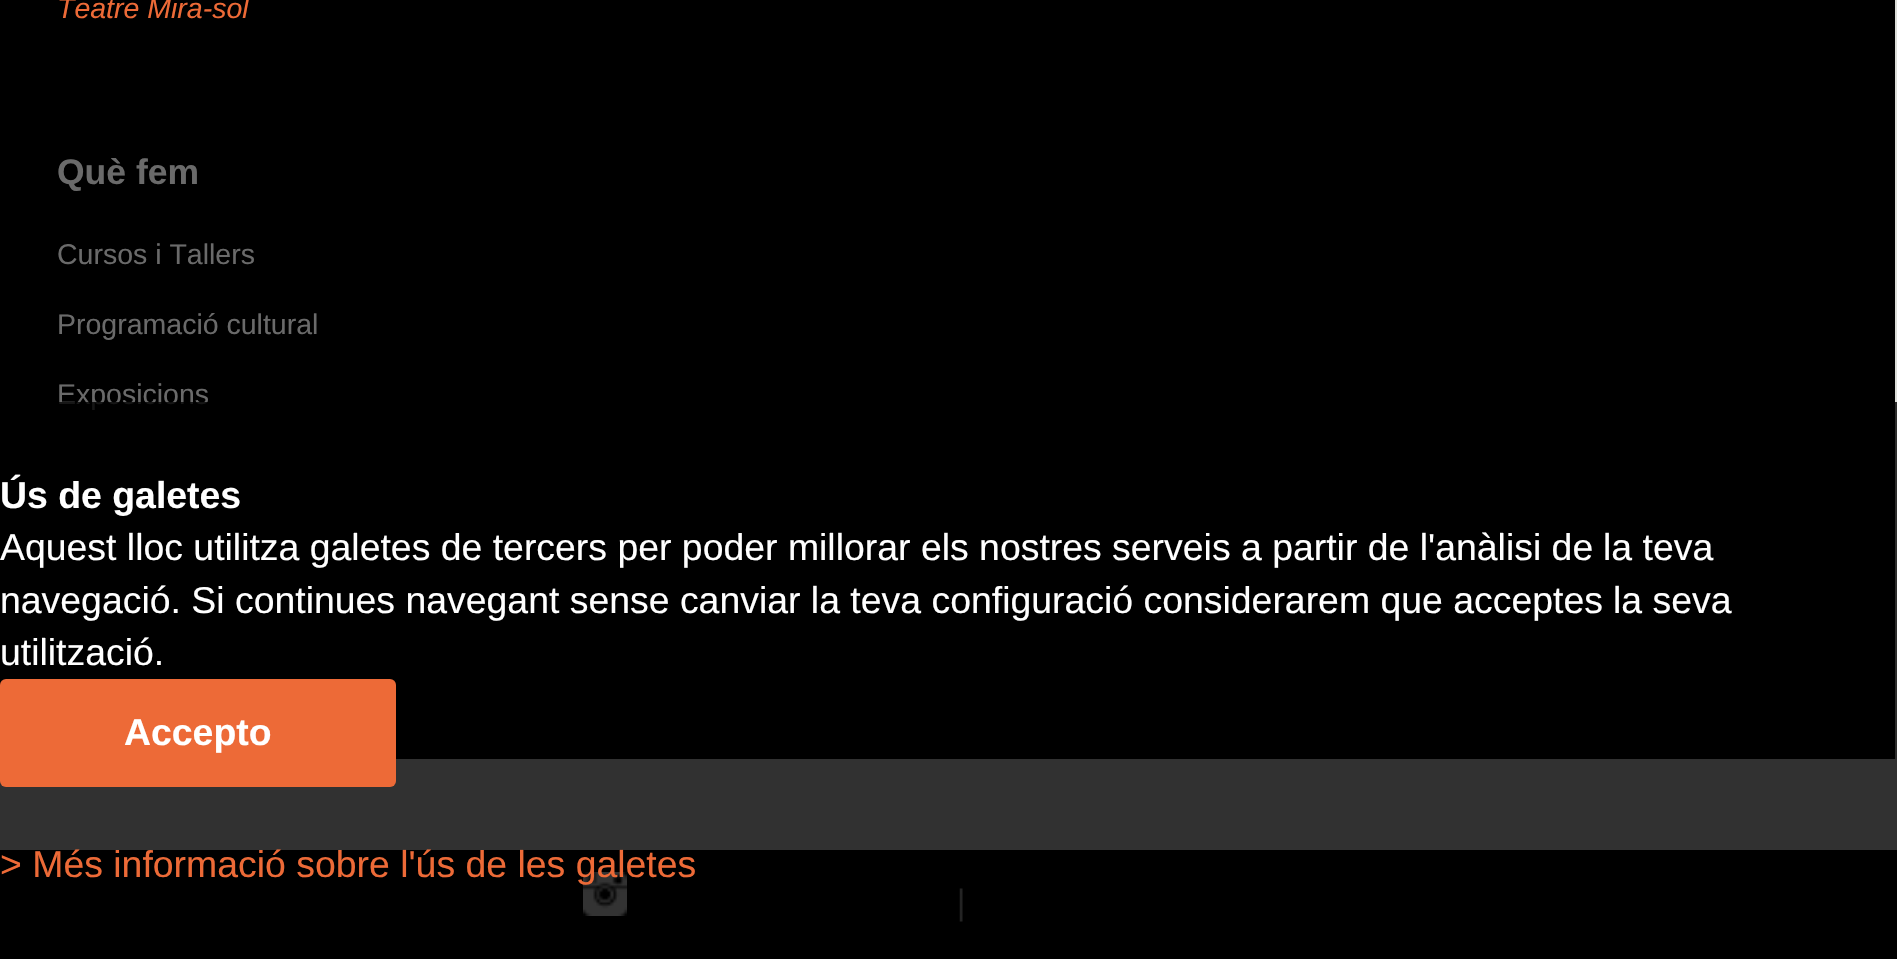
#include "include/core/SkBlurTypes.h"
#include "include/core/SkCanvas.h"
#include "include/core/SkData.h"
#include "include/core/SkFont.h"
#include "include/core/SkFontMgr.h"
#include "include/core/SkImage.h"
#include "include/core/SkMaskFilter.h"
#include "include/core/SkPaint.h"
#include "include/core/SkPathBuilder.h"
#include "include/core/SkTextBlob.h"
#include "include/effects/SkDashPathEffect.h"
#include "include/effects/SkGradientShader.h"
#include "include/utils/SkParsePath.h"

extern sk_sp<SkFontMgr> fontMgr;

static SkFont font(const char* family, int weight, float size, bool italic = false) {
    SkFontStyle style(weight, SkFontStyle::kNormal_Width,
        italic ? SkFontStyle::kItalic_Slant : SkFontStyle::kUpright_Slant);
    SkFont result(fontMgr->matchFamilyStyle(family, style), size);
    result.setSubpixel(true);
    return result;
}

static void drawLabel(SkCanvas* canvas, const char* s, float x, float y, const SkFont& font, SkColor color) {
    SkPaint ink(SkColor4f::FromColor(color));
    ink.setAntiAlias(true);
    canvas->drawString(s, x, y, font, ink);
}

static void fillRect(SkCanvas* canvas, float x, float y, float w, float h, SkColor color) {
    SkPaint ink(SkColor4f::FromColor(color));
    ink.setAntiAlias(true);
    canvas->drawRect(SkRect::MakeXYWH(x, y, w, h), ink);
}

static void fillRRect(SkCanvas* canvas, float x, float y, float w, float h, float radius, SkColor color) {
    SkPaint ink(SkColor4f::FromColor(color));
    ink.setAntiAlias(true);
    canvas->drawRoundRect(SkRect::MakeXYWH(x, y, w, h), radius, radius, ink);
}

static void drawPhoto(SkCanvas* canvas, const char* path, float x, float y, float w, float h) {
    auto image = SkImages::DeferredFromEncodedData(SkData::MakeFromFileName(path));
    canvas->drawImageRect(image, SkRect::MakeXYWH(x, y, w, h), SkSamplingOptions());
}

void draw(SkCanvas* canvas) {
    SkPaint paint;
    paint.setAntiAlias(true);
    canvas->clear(0xFFF3F3F3);
    fillRect(canvas, 0, 0, 1895, 759, 0xFF000000);
    fillRect(canvas, 1895, 0, 2, 759, 0xFFDDDED9);
    SkFont font1 = font("Liberation Sans", 400, 28.5f, true);
    drawLabel(canvas, "Teatre Mira-sol", 57, 18, font1, 0xFFED6A37);
    SkFont font2 = font("Liberation Sans", 700, 35.5f);
    drawLabel(canvas, "Què fem", 57, 184, font2, 0xFF6A6A6A);
    SkFont font3 = font("Liberation Sans", 400, 28.5f);
    drawLabel(canvas, "Cursos i Tallers", 57, 264, font3, 0xFF6A6A6A);
    drawLabel(canvas, "Programació cultural", 57, 334, font3, 0xFF6A6A6A);
    drawLabel(canvas, "Exposicions", 57, 404, font3, 0xFF6A6A6A);
    fillRect(canvas, 0, 850, 1897, 109, 0xFF000000);
    drawPhoto(canvas, "assets/img1.png", 583, 872, 44, 44);
    drawPhoto(canvas, "assets/img2.png", 959, 888, 4, 34);
    fillRect(canvas, 0, 402, 1897, 520, 0xCC000000);
    SkFont font4 = font("Liberation Sans", 700, 37.4f);
    drawLabel(canvas, "Ús de galetes", 0, 508, font4, 0xFFFFFFFF);
    SkFont font5 = font("Liberation Sans", 400, 37.4f);
    drawLabel(canvas, "Aquest lloc utilitza galetes de tercers per poder millorar els nostres serveis a partir de l'anàlisi de", 0, 560, font5, 0xFFFFFFFF);
    drawLabel(canvas, "la teva", 1603, 560, font5, 0xFFFFFFFF);
    drawLabel(canvas, "navegació. Si continues navegant sense canviar la teva configuració considerarem que acceptes", 0, 613, font5, 0xFFFFFFFF);
    drawLabel(canvas, "la seva", 1613, 613, font5, 0xFFFFFFFF);
    drawLabel(canvas, "utilització.", 0, 665, font5, 0xFFFFFFFF);
    fillRRect(canvas, 0, 679, 396, 108, 6, 0xFFED6A37);
    drawLabel(canvas, "Accepto", 124, 745, font4, 0xFFFFFFFF);
    drawLabel(canvas, "> Més informació sobre l'ús de les galetes", 0, 877, font5, 0xFFED6A37);
}
